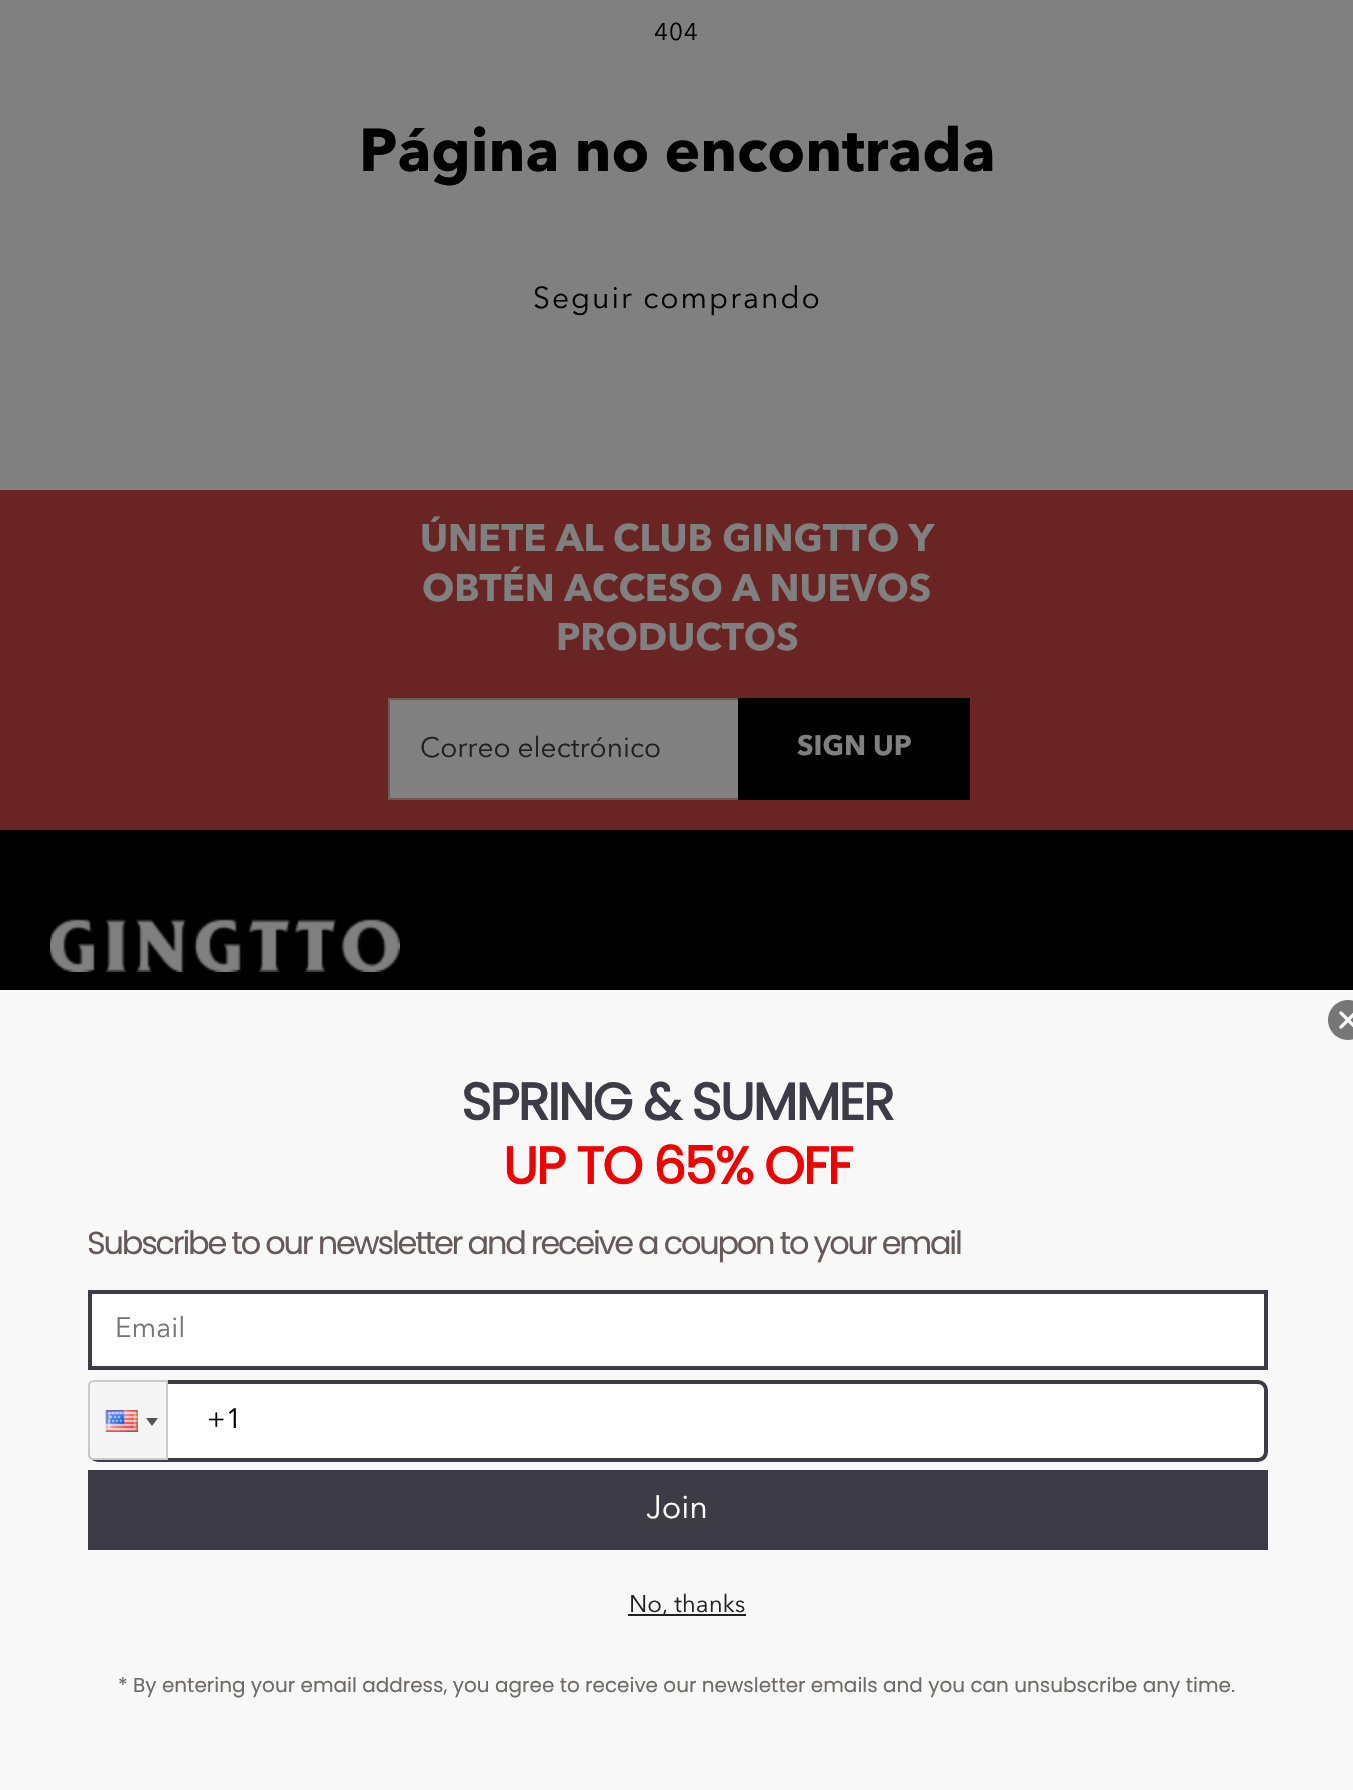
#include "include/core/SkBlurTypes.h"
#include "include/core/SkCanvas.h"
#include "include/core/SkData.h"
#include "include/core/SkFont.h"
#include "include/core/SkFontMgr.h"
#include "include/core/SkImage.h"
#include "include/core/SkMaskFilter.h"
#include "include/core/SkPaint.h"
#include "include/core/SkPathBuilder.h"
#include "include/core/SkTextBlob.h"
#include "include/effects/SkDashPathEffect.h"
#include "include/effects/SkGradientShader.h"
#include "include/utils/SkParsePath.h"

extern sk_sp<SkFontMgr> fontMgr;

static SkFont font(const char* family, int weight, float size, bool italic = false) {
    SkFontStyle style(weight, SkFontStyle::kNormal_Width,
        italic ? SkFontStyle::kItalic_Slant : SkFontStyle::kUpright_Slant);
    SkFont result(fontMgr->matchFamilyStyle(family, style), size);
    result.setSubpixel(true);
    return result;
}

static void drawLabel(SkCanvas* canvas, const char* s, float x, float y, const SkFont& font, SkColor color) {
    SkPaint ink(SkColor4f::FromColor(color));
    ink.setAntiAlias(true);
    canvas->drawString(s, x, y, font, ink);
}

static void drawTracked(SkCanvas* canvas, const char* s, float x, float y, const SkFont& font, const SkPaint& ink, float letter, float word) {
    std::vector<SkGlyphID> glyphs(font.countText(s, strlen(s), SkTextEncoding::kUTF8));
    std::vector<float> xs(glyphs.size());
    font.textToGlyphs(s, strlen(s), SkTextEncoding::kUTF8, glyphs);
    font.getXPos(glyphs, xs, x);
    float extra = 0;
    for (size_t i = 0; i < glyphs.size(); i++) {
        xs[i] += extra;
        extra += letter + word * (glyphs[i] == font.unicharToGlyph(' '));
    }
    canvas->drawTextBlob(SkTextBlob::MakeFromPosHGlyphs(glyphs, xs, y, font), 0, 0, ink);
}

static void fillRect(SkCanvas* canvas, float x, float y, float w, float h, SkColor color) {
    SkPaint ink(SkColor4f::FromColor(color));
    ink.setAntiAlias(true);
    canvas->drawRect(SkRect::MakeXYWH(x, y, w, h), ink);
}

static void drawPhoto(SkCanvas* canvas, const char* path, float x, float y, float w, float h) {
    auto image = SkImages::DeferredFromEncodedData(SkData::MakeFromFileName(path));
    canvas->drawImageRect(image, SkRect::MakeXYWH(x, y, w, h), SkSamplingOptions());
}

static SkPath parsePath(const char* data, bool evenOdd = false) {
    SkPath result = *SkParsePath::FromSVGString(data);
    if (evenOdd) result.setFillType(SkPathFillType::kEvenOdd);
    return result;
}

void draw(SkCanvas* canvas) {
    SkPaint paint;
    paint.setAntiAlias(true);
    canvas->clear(0xFF808080);
    SkFont font1 = font("Avenir Next", 400, 24);
    paint.setColor(0xFF000000);
    drawTracked(canvas, "404", 654, 40, font1, paint, 1, 0);
    SkFont font2 = font("Avenir Next", 700, 60);
    drawLabel(canvas, "Página no encontrada", 359, 171, font2, 0xFF000000);
    SkFont font3 = font("Avenir Next", 400, 30);
    drawTracked(canvas, "Seguir comprando", 533, 308, font3, paint, 2, 0);
    fillRect(canvas, 0, 490, 1353, 340, 0xFF6A2424);
    SkFont font4 = font("Avenir Next", 700, 38);
    drawLabel(canvas, "ÚNETE AL CLUB GINGTTO Y", 420, 551, font4, 0xFF808080);
    drawLabel(canvas, "OBTÉN ACCESO A NUEVOS", 422, 601, font4, 0xFF808080);
    drawLabel(canvas, "PRODUCTOS", 556, 650, font4, 0xFF808080);
    fillRect(canvas, 390, 700, 348, 98, 0xFF808080);
    paint.setStroke(true);
    paint.setStrokeWidth(2);
    paint.setColor(0xFF765757);
    canvas->drawRect(SkRect::MakeXYWH(389, 699, 576, 100), paint);
    fillRect(canvas, 738, 698, 232, 102, 0xFF000000);
    SkFont font5 = font("Avenir Next", 700, 28);
    drawLabel(canvas, "SIGN UP", 797, 755, font5, 0xFF808080);
    SkFont font6 = font("Avenir Next", 400, 28);
    drawLabel(canvas, "Correo electrónico", 420, 757, font6, 0xFF202020);
    fillRect(canvas, 0, 830, 1353, 160, 0xFF000000);
    drawPhoto(canvas, "assets/img1.png", 50, 919, 350, 53);
    fillRect(canvas, 0, 990, 1353, 800, 0xFFF8F8F8);
    drawPhoto(canvas, "assets/img2.png", 1328, 1000, 25, 40);
    SkFont font7 = font("Poppins", 700, 52);
    paint.setStroke(false);
    paint.setColor(0xFF3D3C46);
    drawTracked(canvas, "SPRING & SUMMER", 461, 1120, font7, paint, -2, 0);
    paint.setColor(0xFFEC0500);
    drawTracked(canvas, "UP TO 65% OFF", 503, 1184, font7, paint, -2, 0);
    SkFont font8 = font("Poppins", 400, 32);
    paint.setColor(0xFF655959);
    drawTracked(canvas, "Subscribe to our newsletter and receive a coupon to your email", 87, 1254, font8, paint, -2.25f, 0);
    paint.setColor(0xFFFFFFFF);
    canvas->drawRect(SkRect::MakeXYWH(90, 1292, 1176, 76), paint);
    paint.setStroke(true);
    paint.setStrokeWidth(4);
    paint.setColor(0xFF3D3C46);
    canvas->drawRect(SkRect::MakeXYWH(90, 1292, 1176, 76), paint);
    drawLabel(canvas, "Email", 115, 1337, font6, 0xFF757575);
    paint.setStroke(false);
    paint.setColor(0xFFFFFFFF);
    canvas->drawRoundRect(SkRect::MakeXYWH(90, 1382, 1176, 78), 8, 8, paint);
    paint.setStroke(true);
    paint.setColor(0xFF3D3C46);
    canvas->drawRoundRect(SkRect::MakeXYWH(90, 1382, 1176, 78), 8, 8, paint);
    paint.setStroke(false);
    paint.setColor(0xFFF5F5F5);
    canvas->drawPath(parsePath("M94 1381H167V1459H94C91 1459 89 1457 89 1454V1386C89 1383 91 1381 94 1381Z"), paint);
    paint.setStroke(true);
    paint.setStrokeWidth(2);
    paint.setColor(0xFFCACACA);
    canvas->drawPath(parsePath("M94 1381H167V1459H94C91 1459 89 1457 89 1454V1386C89 1383 91 1381 94 1381Z"), paint);
    drawPhoto(canvas, "assets/img3.png", 105, 1410, 33, 22);
    paint.setStroke(false);
    paint.setColor(0xFF555555);
    canvas->drawPath(parsePath("M146 1418H158L152 1426Z"), paint);
    drawLabel(canvas, "+1", 207, 1428, font6, 0xFF000000);
    fillRect(canvas, 88, 1470, 1180, 80, 0xFF3D3C46);
    SkFont font9 = font("Avenir Next", 400, 32);
    drawLabel(canvas, "Join", 646, 1518, font9, 0xFFFFFFFF);
    fillRect(canvas, 628, 1614, 118, 2, 0xFF212121);
    drawLabel(canvas, "No, thanks", 629, 1612, font1, 0xFF202020);
    SkFont font10 = font("Poppins", 400, 20);
    drawLabel(canvas, "* By entering your email address, you agree to receive our newsletter emails and you can unsubscribe any time.", 118, 1692, font10, 0xFF6F6969);
}
